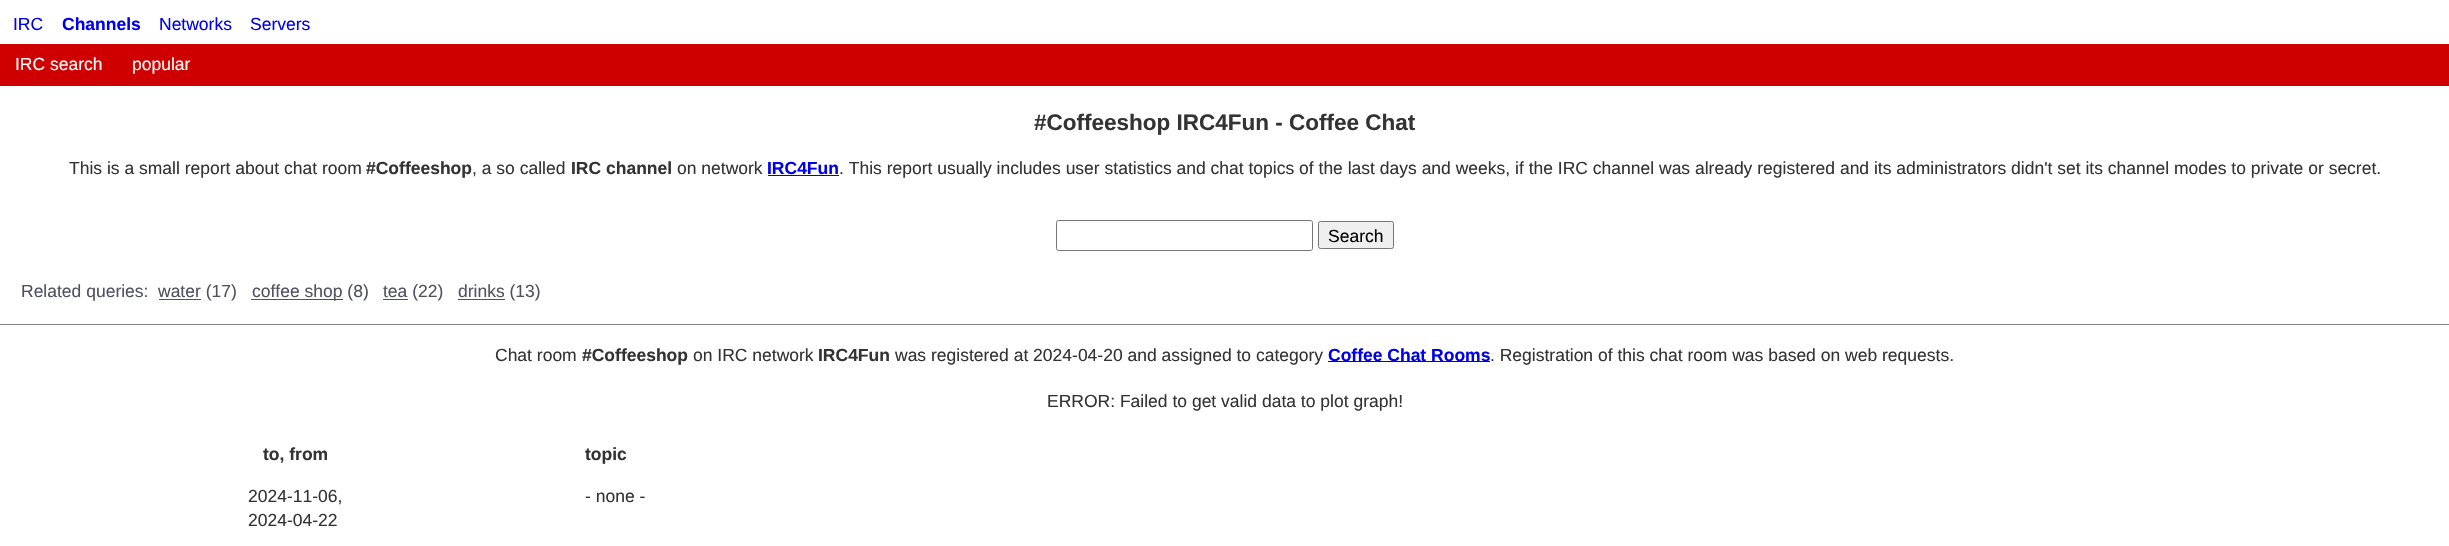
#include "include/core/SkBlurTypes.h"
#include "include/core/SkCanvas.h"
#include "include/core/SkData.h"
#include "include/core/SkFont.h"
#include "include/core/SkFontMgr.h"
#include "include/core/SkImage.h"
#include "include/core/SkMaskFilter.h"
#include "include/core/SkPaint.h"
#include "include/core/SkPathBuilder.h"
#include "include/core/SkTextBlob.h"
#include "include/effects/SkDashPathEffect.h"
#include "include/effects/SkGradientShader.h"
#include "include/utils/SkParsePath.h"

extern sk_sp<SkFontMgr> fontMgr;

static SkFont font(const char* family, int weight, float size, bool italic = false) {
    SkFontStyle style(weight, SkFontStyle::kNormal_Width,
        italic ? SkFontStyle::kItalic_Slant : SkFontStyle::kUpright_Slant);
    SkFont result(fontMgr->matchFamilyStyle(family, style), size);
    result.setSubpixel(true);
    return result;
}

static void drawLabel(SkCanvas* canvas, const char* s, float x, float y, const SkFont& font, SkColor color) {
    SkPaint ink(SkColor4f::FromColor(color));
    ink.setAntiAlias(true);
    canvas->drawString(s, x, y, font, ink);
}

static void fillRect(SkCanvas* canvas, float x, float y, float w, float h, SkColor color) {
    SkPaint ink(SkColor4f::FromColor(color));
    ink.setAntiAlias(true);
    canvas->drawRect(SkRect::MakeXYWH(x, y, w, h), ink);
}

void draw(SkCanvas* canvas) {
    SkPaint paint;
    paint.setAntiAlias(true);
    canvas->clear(0xFFFFFFFF);
    SkFont font1 = font("Liberation Sans", 400, 17.5f);
    drawLabel(canvas, "IRC", 13, 30, font1, 0xFF0000EE);
    SkFont font2 = font("Liberation Sans", 700, 17.5f);
    drawLabel(canvas, "Channels", 62, 30, font2, 0xFF0000EE);
    drawLabel(canvas, "Networks", 159, 30, font1, 0xFF0000EE);
    drawLabel(canvas, "Servers", 250, 30, font1, 0xFF0000EE);
    fillRect(canvas, 0, 44, 2449, 42, 0xFFCF0000);
    drawLabel(canvas, "IRC search", 15, 70, font1, 0xFFFFFFFF);
    drawLabel(canvas, "popular", 132, 70, font1, 0xFFFFFFFF);
    SkFont font3 = font("Liberation Sans", 700, 22.5f);
    drawLabel(canvas, "#Coffeeshop IRC4Fun - Coffee Chat", 1034, 130, font3, 0xFF333333);
    drawLabel(canvas, "This is a small report about chat room", 69, 174, font1, 0xFF333333);
    drawLabel(canvas, "#Coffeeshop", 366, 174, font2, 0xFF333333);
    drawLabel(canvas, ", a so called", 472, 174, font1, 0xFF333333);
    drawLabel(canvas, "IRC channel", 571, 174, font2, 0xFF333333);
    drawLabel(canvas, "on network", 677, 174, font1, 0xFF333333);
    drawLabel(canvas, "IRC4Fun", 767, 174, font2, 0xFF0000EE);
    fillRect(canvas, 768, 175, 71, 1, 0xFF0000EE);
    drawLabel(canvas, ". This report usually includes user statistics and chat topics of the last days and weeks, if the IRC channel was already registered and its administrators didn't set its channel modes to private or secret.", 839, 174, font1, 0xFF333333);
    paint.setStroke(true);
    paint.setStrokeWidth(1);
    paint.setColor(0xFF767676);
    canvas->drawRoundRect(SkRect::MakeXYWH(1056.5f, 220.5f, 256, 30), 2, 2, paint);
    paint.setStroke(false);
    paint.setColor(0xFFEFEFEF);
    canvas->drawRoundRect(SkRect::MakeXYWH(1318.5f, 221.5f, 75, 27), 2, 2, paint);
    paint.setStroke(true);
    paint.setColor(0xFF767676);
    canvas->drawRoundRect(SkRect::MakeXYWH(1318.5f, 221.5f, 75, 27), 2, 2, paint);
    drawLabel(canvas, "Search", 1328, 242, font1, 0xFF000000);
    drawLabel(canvas, "Related queries:", 21, 297, font1, 0xFF505060);
    fillRect(canvas, 159, 299, 42, 1, 0xFF505060);
    drawLabel(canvas, "water (17)", 158, 297, font1, 0xFF505060);
    fillRect(canvas, 251, 299, 92, 1, 0xFF505060);
    drawLabel(canvas, "coffee shop (8)", 252, 297, font1, 0xFF505060);
    fillRect(canvas, 383, 299, 25, 1, 0xFF505060);
    drawLabel(canvas, "tea (22)", 383, 297, font1, 0xFF505060);
    fillRect(canvas, 458, 299, 47, 1, 0xFF505060);
    drawLabel(canvas, "drinks (13)", 458, 297, font1, 0xFF505060);
    fillRect(canvas, 0, 324, 2449, 1, 0xFF808080);
    drawLabel(canvas, "Chat room", 495, 361, font1, 0xFF333333);
    drawLabel(canvas, "#Coffeeshop", 582, 361, font2, 0xFF333333);
    drawLabel(canvas, "on IRC network", 693, 361, font1, 0xFF333333);
    drawLabel(canvas, "IRC4Fun", 818, 361, font2, 0xFF333333);
    drawLabel(canvas, "was registered at 2024-04-20 and assigned to category", 895, 361, font1, 0xFF333333);
    fillRect(canvas, 1328, 361, 162, 1, 0xFF0000EE);
    drawLabel(canvas, "Coffee Chat Rooms", 1328, 361, font2, 0xFF0000EE);
    drawLabel(canvas, ". Registration of this chat room was based on web requests.", 1490, 361, font1, 0xFF333333);
    drawLabel(canvas, "ERROR: Failed to get valid data to plot graph!", 1047, 407, font1, 0xFF333333);
    drawLabel(canvas, "to, from", 263, 460, font2, 0xFF333333);
    drawLabel(canvas, "topic", 585, 460, font2, 0xFF333333);
    drawLabel(canvas, "2024-11-06,", 248, 502, font1, 0xFF333333);
    drawLabel(canvas, "2024-04-22", 248, 526, font1, 0xFF333333);
    drawLabel(canvas, "- none -", 585, 502, font1, 0xFF333333);
}
